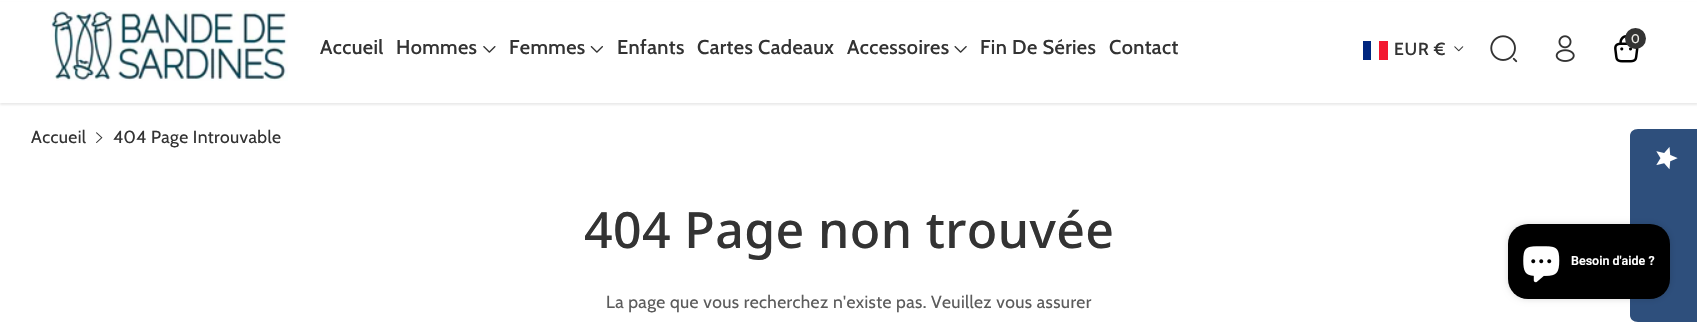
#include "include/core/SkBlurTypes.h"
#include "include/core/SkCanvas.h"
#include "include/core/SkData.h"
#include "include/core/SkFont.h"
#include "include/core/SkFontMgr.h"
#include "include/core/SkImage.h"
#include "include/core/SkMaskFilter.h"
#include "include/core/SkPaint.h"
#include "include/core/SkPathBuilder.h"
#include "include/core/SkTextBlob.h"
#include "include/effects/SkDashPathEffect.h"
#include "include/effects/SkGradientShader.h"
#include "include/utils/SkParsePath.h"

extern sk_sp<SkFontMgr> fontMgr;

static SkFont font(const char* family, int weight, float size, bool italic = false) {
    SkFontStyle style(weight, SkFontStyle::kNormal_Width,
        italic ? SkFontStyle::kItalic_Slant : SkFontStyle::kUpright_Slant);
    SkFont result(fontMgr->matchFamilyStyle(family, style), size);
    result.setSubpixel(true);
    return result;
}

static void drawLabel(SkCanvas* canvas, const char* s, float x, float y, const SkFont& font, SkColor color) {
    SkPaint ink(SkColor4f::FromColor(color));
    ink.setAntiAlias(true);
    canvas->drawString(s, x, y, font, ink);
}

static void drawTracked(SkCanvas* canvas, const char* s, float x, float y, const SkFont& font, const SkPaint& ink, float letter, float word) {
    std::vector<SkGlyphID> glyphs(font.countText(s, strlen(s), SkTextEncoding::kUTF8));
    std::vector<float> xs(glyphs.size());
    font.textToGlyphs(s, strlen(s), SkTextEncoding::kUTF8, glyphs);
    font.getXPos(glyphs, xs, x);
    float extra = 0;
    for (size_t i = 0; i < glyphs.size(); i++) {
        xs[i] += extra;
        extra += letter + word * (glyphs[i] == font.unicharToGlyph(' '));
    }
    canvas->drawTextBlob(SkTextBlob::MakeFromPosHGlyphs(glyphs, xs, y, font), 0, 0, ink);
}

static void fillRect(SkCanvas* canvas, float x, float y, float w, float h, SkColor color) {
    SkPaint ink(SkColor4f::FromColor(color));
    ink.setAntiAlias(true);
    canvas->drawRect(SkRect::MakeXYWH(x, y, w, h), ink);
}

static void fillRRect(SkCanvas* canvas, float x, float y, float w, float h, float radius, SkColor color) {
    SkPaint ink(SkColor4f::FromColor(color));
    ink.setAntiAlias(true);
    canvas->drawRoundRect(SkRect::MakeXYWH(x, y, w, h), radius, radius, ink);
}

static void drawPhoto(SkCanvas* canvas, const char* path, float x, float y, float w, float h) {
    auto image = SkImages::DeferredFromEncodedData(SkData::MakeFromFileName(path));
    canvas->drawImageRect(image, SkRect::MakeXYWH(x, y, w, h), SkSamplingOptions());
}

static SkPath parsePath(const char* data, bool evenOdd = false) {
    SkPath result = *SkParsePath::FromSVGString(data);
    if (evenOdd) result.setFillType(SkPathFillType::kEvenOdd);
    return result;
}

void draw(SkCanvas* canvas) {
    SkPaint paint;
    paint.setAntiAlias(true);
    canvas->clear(0xFFFFFFFF);
    paint.setColor(0x1A333333);
    paint.setMaskFilter(SkMaskFilter::MakeBlur(kNormal_SkBlurStyle, 1));
    canvas->drawRect(SkRect::MakeXYWH(0, 3, 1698, 102), paint);
    paint.setMaskFilter(nullptr);
    fillRect(canvas, 0, 2, 1697, 101, 0xFFFFFFFF);
    drawPhoto(canvas, "assets/img1.png", 50, 10, 238, 71);
    SkFont font1 = font("Cabin", 500, 20);
    paint.setColor(0xFF333333);
    drawTracked(canvas, "Accueil", 320, 54, font1, paint, 0.38f, 0);
    drawTracked(canvas, "Hommes", 396, 54, font1, paint, 0.38f, 0);
    drawPhoto(canvas, "assets/img2.png", 483, 46, 13, 7);
    drawTracked(canvas, "Femmes", 509, 54, font1, paint, 0.38f, 0);
    drawPhoto(canvas, "assets/img3.png", 590, 46, 13, 7);
    drawTracked(canvas, "Enfants", 617, 54, font1, paint, 0.38f, 0);
    drawTracked(canvas, "Cartes Cadeaux", 697, 54, font1, paint, 0.38f, 0);
    drawTracked(canvas, "Accessoires", 847, 54, font1, paint, 0.38f, 0);
    drawPhoto(canvas, "assets/img4.png", 954, 46, 13, 7);
    drawTracked(canvas, "Fin De Séries", 980, 54, font1, paint, 0.38f, 0);
    drawTracked(canvas, "Contact", 1109, 54, font1, paint, 0.38f, 0);
    fillRect(canvas, 1363, 41, 8, 19, 0xFF00267F);
    fillRect(canvas, 1379, 41, 9, 19, 0xFFF31830);
    SkFont font2 = font("Cabin", 500, 17.5f);
    drawTracked(canvas, "EUR €", 1394, 55, font2, paint, 0.75f, 0);
    drawPhoto(canvas, "assets/img5.png", 1454, 46, 10, 6);
    drawPhoto(canvas, "assets/img6.png", 1490, 35, 28, 28);
    drawPhoto(canvas, "assets/img7.png", 1555, 35, 20, 27);
    drawPhoto(canvas, "assets/img8.png", 1614, 35, 25, 28);
    canvas->drawCircle(1635.5f, 38.5f, 10.5f, paint);
    SkFont font3 = font("Cabin", 400, 12.5f);
    drawLabel(canvas, "0", 1631, 43, font3, 0xFFEAE9E5);
    SkFont font4 = font("Cabin", 400, 17.5f);
    drawTracked(canvas, "Accueil", 31, 143, font4, paint, 0.38f, 0);
    drawPhoto(canvas, "assets/img9.png", 96, 132, 7, 11);
    drawTracked(canvas, "404 Page Introuvable", 113, 143, font4, paint, 0.38f, 0);
    SkFont font5 = font("Noto Sans", 500, 50);
    drawTracked(canvas, "404 Page non trouvée", 584, 248, font5, paint, 0.38f, 0);
    paint.setColor(0xFF5C5C5C);
    drawTracked(canvas, "La page que vous recherchez n'existe pas. Veuillez vous assurer", 606, 308, font4, paint, 0.38f, 0);
    paint.setColor(0xFF2E4F7C);
    canvas->drawPath(parsePath("M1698 129V322H1638C1633 322 1630 319 1630 315V136C1630 132 1633 129 1638 129Z"), paint);
    paint.setColor(0x26000000);
    paint.setMaskFilter(SkMaskFilter::MakeBlur(kNormal_SkBlurStyle, 3));
    canvas->drawRoundRect(SkRect::MakeXYWH(1508, 224, 162, 75), 20, 20, paint);
    paint.setMaskFilter(nullptr);
    fillRRect(canvas, 1508, 224, 162, 75, 20, 0xFF000000);
    drawPhoto(canvas, "assets/img10.png", 1523, 246, 37, 37);
    SkFont font6 = font("Roboto", 600, 12.5f);
    drawLabel(canvas, "Besoin d'aide ?", 1571, 265, font6, 0xFFFFFFFF);
    drawPhoto(canvas, "assets/img11.png", 1656, 147, 22, 23);
}
